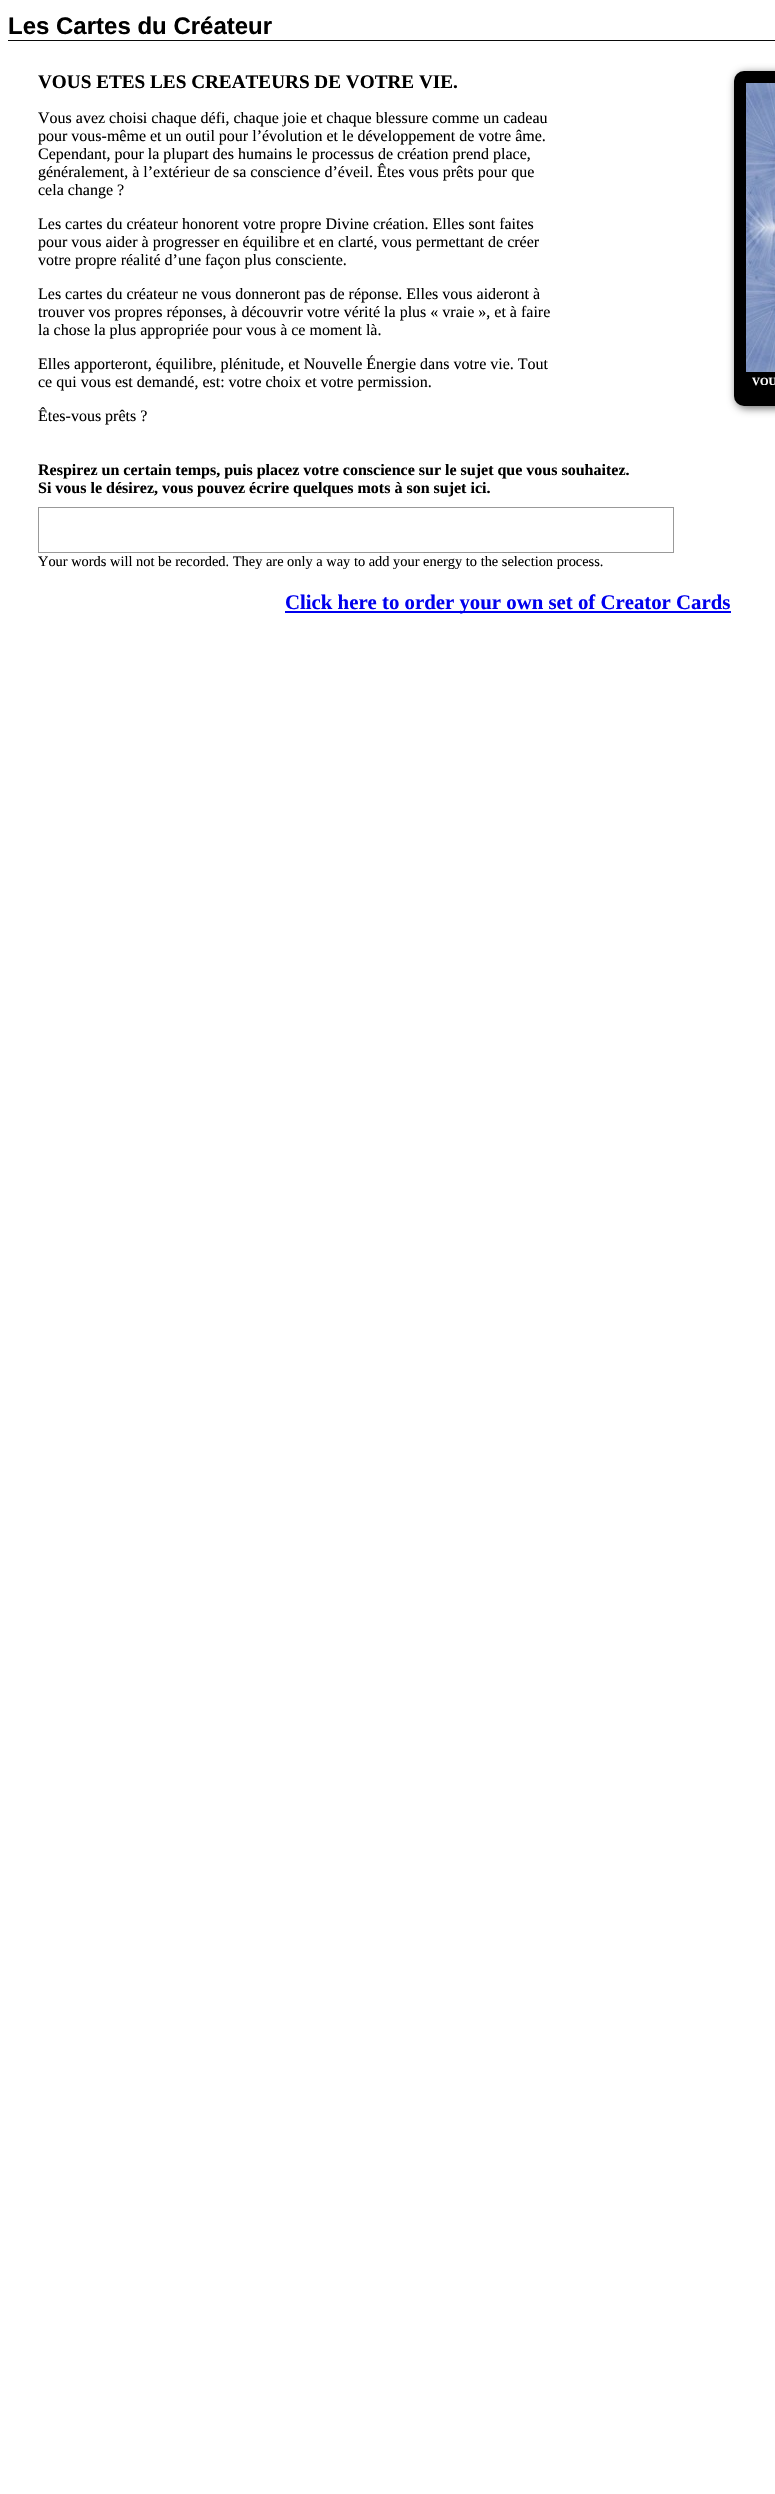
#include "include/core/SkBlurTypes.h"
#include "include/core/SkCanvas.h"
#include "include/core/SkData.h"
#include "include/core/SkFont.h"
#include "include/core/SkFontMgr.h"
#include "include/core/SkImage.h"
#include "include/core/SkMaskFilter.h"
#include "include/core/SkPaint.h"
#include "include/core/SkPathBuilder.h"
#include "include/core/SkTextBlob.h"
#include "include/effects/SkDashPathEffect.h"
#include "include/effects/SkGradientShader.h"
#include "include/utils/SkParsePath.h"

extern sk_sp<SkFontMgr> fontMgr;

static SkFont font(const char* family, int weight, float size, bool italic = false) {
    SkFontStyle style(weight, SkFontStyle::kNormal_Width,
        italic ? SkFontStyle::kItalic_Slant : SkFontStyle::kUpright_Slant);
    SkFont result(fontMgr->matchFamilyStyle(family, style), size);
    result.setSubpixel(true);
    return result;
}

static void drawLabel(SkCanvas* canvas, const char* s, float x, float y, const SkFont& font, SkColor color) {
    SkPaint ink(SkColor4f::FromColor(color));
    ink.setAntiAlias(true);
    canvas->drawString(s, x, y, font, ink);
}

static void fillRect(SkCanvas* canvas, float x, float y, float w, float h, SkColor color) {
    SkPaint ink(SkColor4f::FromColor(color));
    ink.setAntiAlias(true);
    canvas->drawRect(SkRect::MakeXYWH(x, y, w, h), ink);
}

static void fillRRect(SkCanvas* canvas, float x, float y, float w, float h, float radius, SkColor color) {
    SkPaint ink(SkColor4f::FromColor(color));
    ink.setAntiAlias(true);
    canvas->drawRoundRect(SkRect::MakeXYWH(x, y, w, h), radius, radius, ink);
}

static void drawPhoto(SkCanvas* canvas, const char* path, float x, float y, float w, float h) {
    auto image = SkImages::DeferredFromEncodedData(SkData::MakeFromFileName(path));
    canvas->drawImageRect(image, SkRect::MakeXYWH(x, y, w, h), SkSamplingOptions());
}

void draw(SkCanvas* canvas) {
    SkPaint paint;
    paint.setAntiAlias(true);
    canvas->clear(0xFFFFFFFF);
    fillRect(canvas, 8, 40, 767, 1, 0xFF0A0A0A);
    SkFont font1 = font("Liberation Sans", 700, 24);
    drawLabel(canvas, "Les Cartes du Créateur", 8, 34, font1, 0xFF000000);
    SkFont font2 = font("Liberation Serif", 700, 19.2f);
    drawLabel(canvas, "VOUS ETES LES CREATEURS DE VOTRE VIE.", 38, 88, font2, 0xFF000000);
    SkFont font3 = font("Liberation Serif", 400, 16);
    drawLabel(canvas, "Vous avez choisi chaque défi, chaque joie et chaque blessure comme un cadeau", 38, 123, font3, 0xFF000000);
    drawLabel(canvas, "pour vous-même et un outil pour l’évolution et le développement de votre âme.", 38, 141, font3, 0xFF000000);
    drawLabel(canvas, "Cependant, pour la plupart des humains le processus de création prend place,", 38, 159, font3, 0xFF000000);
    drawLabel(canvas, "généralement, à l’extérieur de sa conscience d’éveil. Êtes vous prêts pour que", 38, 177, font3, 0xFF000000);
    drawLabel(canvas, "cela change ?", 38, 195, font3, 0xFF000000);
    drawLabel(canvas, "Les cartes du créateur honorent votre propre Divine création. Elles sont faites", 38, 229, font3, 0xFF000000);
    drawLabel(canvas, "pour vous aider à progresser en équilibre et en clarté, vous permettant de créer", 38, 247, font3, 0xFF000000);
    drawLabel(canvas, "votre propre réalité d’une façon plus consciente.", 38, 265, font3, 0xFF000000);
    drawLabel(canvas, "Les cartes du créateur ne vous donneront pas de réponse. Elles vous aideront à", 38, 299, font3, 0xFF000000);
    drawLabel(canvas, "trouver vos propres réponses, à découvrir votre vérité la plus « vraie », et à faire", 38, 317, font3, 0xFF000000);
    drawLabel(canvas, "la chose la plus appropriée pour vous à ce moment là.", 38, 335, font3, 0xFF000000);
    drawLabel(canvas, "Elles apporteront, équilibre, plénitude, et Nouvelle Énergie dans votre vie. Tout", 38, 369, font3, 0xFF000000);
    drawLabel(canvas, "ce qui vous est demandé, est: votre choix et votre permission.", 38, 387, font3, 0xFF000000);
    drawLabel(canvas, "Êtes-vous prêts ?", 38, 421, font3, 0xFF000000);
    paint.setColor(0xFF666666);
    paint.setMaskFilter(SkMaskFilter::MakeBlur(kNormal_SkBlurStyle, 4));
    canvas->drawRoundRect(SkRect::MakeXYWH(736, 73, 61, 335), 10, 10, paint);
    paint.setMaskFilter(nullptr);
    fillRRect(canvas, 734, 71, 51, 335, 10, 0xFF000000);
    drawPhoto(canvas, "assets/img1.png", 746, 83, 29, 289);
    SkFont font4 = font("Liberation Serif", 700, 11);
    drawLabel(canvas, "VOU", 752, 385, font4, 0xFFFFFFFF);
    SkFont font5 = font("Liberation Serif", 700, 16);
    drawLabel(canvas, "Respirez un certain temps, puis placez votre conscience sur le sujet que vous souhaitez.", 38, 475, font5, 0xFF000000);
    drawLabel(canvas, "Si vous le désirez, vous pouvez écrire quelques mots à son sujet ici.", 38, 493, font5, 0xFF000000);
    paint.setStroke(true);
    paint.setStrokeWidth(1);
    paint.setColor(0xFF999999);
    canvas->drawRect(SkRect::MakeXYWH(38.5f, 507.5f, 635, 45), paint);
    SkFont font6 = font("Liberation Serif", 400, 14.4f);
    drawLabel(canvas, "Your words will not be recorded. They are only a way to add your energy to the selection process.", 38, 566, font6, 0xFF000000);
    fillRect(canvas, 285, 611, 446, 2, 0xFF0000EE);
    SkFont font7 = font("Liberation Serif", 700, 20.8f);
    drawLabel(canvas, "Click here to order your own set of Creator Cards", 285, 609, font7, 0xFF0000EE);
}
